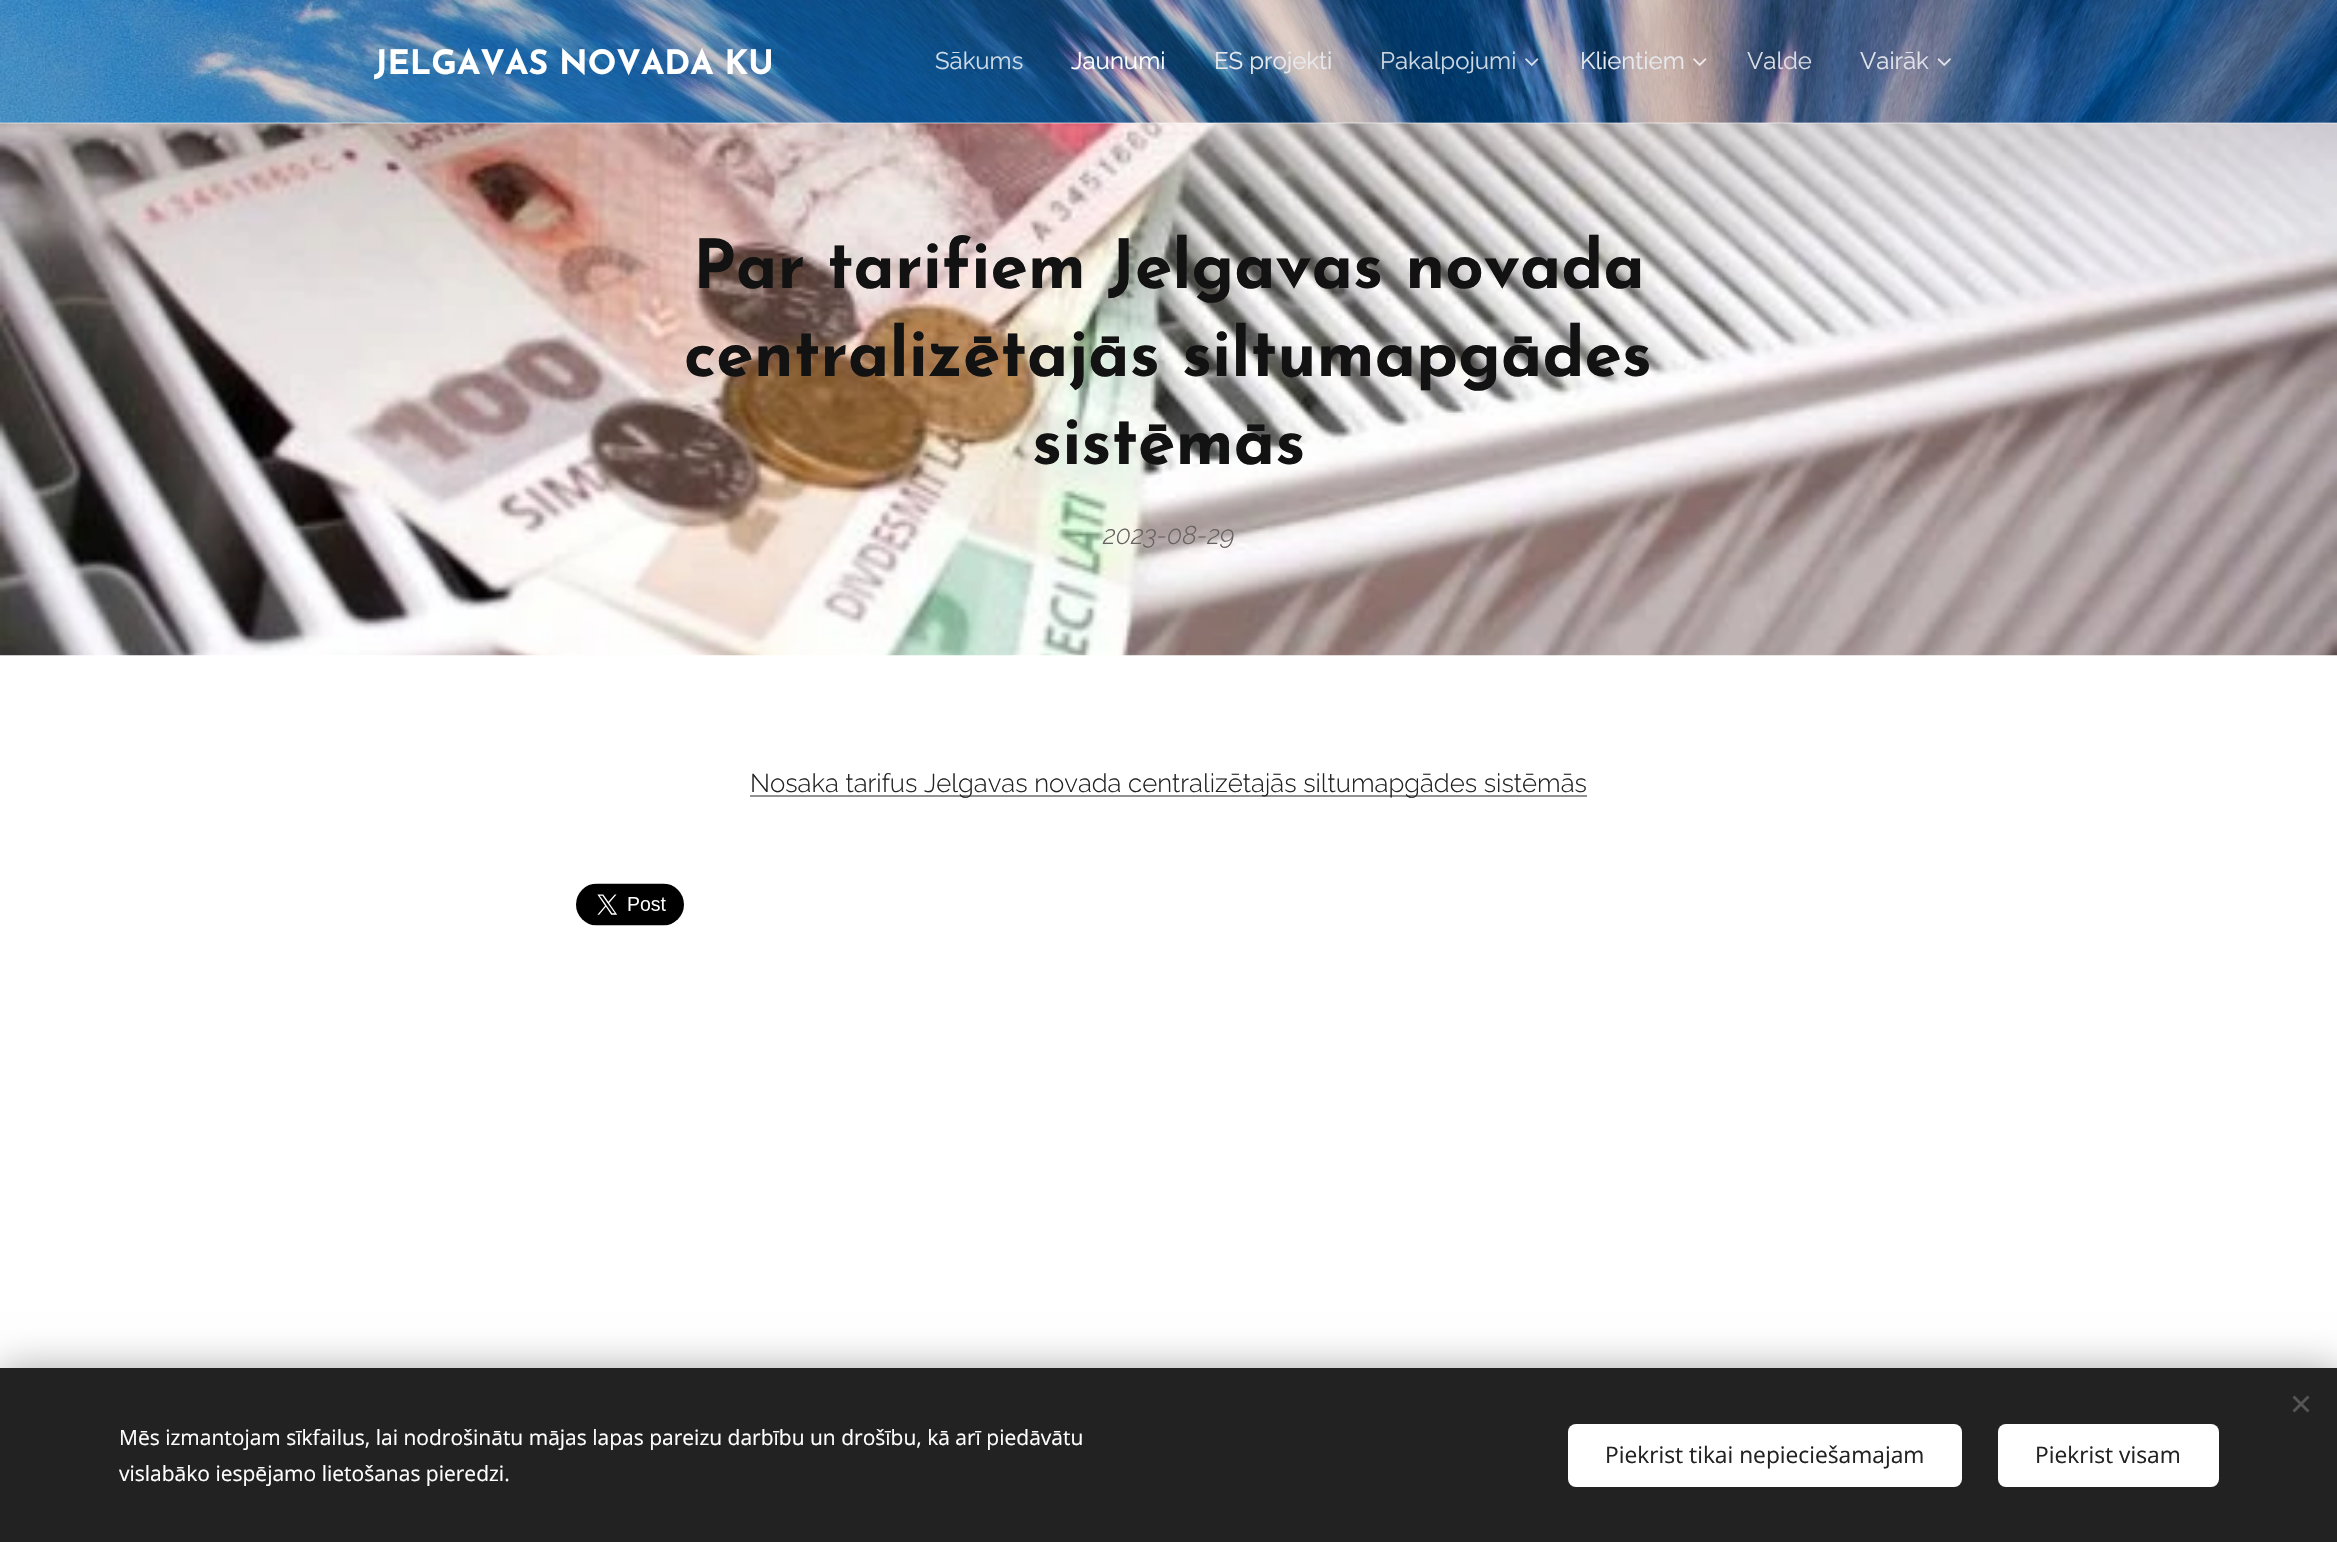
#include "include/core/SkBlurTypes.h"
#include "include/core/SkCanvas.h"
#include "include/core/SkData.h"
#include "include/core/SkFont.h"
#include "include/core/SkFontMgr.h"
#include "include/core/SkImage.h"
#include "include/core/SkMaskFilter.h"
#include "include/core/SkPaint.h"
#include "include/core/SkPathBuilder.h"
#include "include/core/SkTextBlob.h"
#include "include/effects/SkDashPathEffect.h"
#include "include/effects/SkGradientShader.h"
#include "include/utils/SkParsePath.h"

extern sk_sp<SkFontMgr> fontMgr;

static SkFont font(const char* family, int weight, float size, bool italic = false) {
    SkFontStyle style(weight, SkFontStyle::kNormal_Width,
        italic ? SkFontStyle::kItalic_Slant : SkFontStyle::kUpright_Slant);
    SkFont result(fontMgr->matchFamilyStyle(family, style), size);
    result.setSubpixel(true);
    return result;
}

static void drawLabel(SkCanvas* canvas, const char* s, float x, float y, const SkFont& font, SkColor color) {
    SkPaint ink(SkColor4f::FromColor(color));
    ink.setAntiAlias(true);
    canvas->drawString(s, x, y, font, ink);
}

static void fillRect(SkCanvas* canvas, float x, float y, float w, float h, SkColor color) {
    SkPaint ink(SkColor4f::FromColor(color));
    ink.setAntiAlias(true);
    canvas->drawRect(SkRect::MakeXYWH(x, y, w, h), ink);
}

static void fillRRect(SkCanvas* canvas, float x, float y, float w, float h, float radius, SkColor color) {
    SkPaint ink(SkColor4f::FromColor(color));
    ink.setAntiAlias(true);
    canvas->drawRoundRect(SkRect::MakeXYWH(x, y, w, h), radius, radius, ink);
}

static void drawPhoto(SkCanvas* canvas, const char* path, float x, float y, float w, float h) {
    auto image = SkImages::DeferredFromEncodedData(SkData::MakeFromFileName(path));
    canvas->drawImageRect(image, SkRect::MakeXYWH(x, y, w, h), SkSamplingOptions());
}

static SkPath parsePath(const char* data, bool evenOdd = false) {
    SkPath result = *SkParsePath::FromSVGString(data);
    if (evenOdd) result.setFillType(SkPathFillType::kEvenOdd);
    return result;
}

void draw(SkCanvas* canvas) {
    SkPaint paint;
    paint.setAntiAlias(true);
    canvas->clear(0xFFFFFFFF);
    drawPhoto(canvas, "assets/img1.png", 0, 0, 2337, 123);
    SkFont font1 = font("Josefin Sans", 700, 33.6f);
    drawLabel(canvas, "JELGAVAS NOVADA KU", 374, 74, font1, 0xFFFFFFFF);
    SkFont font2 = font("Raleway", 400, 24);
    drawLabel(canvas, "Sākums", 935, 69, font2, 0xFFCFDCE8);
    drawLabel(canvas, "Jaunumi", 1071, 69, font2, 0xFFFFFFFF);
    drawLabel(canvas, "ES projekti", 1214, 69, font2, 0xFFE6E9EE);
    drawLabel(canvas, "Pakalpojumi", 1380, 69, font2, 0xFFCDD8E2);
    drawPhoto(canvas, "assets/img2.png", 1525, 58, 14, 8);
    drawLabel(canvas, "Klientiem", 1580, 69, font2, 0xFFE6E9EE);
    drawPhoto(canvas, "assets/img3.png", 1693, 58, 14, 8);
    drawLabel(canvas, "Valde", 1747, 69, font2, 0xFFDADDE4);
    drawLabel(canvas, "Vairāk", 1860, 69, font2, 0xFFE0E2E9);
    drawPhoto(canvas, "assets/img4.png", 1937, 58, 14, 8);
    drawPhoto(canvas, "assets/img5.png", 0, 123, 2337, 533);
    fillRect(canvas, 0, 122, 2337, 2, 0x4DFFFFFF);
    SkFont font3 = font("Josefin Sans", 700, 67.5f);
    drawLabel(canvas, "Par tarifiem Jelgavas novada", 693, 288, font3, 0xFF131212);
    drawLabel(canvas, "centralizētajās siltumapgādes", 684, 376, font3, 0xFF131212);
    drawLabel(canvas, "sistēmās", 1032, 464, font3, 0xFF131212);
    SkFont font4 = font("Raleway", 300, 25.8f, true);
    drawLabel(canvas, "2023-08-29", 1103, 544, font4, 0xFF656260);
    fillRect(canvas, 750, 795, 837, 2, 0xFF919191);
    SkFont font5 = font("Raleway", 300, 25.8f);
    drawLabel(canvas, "Nosaka tarifus Jelgavas novada centralizētajās siltumapgādes sistēmās", 750, 792, font5, 0xFF222222);
    drawPhoto(canvas, "assets/img6.png", 576, 883, 108, 43);
    paint.setColor(0x54000000);
    paint.setMaskFilter(SkMaskFilter::MakeBlur(kNormal_SkBlurStyle, 19));
    canvas->drawRect(SkRect::MakeXYWH(0, 1368, 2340, 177), paint);
    paint.setMaskFilter(nullptr);
    fillRect(canvas, 0, 1368, 2337, 174, 0xFF222222);
    paint.setColor(0xFF555555);
    canvas->drawPath(parsePath("M2292.5 1410.5L2307.5 1395.5L2309.5 1397.5L2294.5 1412.5Z"), paint);
    canvas->drawPath(parsePath("M2294.5 1395.5L2309.5 1410.5L2307.5 1412.5L2292.5 1397.5Z"), paint);
    SkFont font6 = font("Open Sans", 400, 21);
    drawLabel(canvas, "Mēs izmantojam sīkfailus, lai nodrošinātu mājas lapas pareizu darbību un drošību, kā arī piedāvātu", 119, 1445, font6, 0xFFFFFFFF);
    drawLabel(canvas, "vislabāko iespējamo lietošanas pieredzi.", 119, 1481, font6, 0xFFFFFFFF);
    fillRRect(canvas, 1568, 1424, 394, 63, 8, 0xFFFFFFFF);
    SkFont font7 = font("Open Sans", 400, 22.75f);
    drawLabel(canvas, "Piekrist tikai nepieciešamajam", 1605, 1463, font7, 0xFF222222);
    fillRRect(canvas, 1998, 1424, 221, 63, 8, 0xFFFFFFFF);
    drawLabel(canvas, "Piekrist visam", 2035, 1463, font7, 0xFF222222);
}
